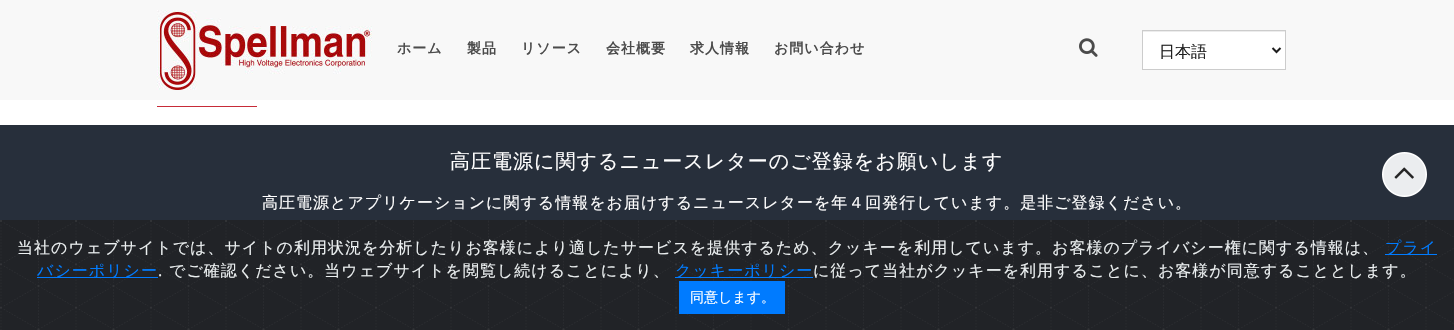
#include "include/core/SkBlurTypes.h"
#include "include/core/SkCanvas.h"
#include "include/core/SkData.h"
#include "include/core/SkFont.h"
#include "include/core/SkFontMgr.h"
#include "include/core/SkImage.h"
#include "include/core/SkMaskFilter.h"
#include "include/core/SkPaint.h"
#include "include/core/SkPathBuilder.h"
#include "include/core/SkTextBlob.h"
#include "include/effects/SkDashPathEffect.h"
#include "include/effects/SkGradientShader.h"
#include "include/utils/SkParsePath.h"

extern sk_sp<SkFontMgr> fontMgr;

static SkFont font(const char* family, int weight, float size, bool italic = false) {
    SkFontStyle style(weight, SkFontStyle::kNormal_Width,
        italic ? SkFontStyle::kItalic_Slant : SkFontStyle::kUpright_Slant);
    SkFont result(fontMgr->matchFamilyStyle(family, style), size);
    result.setSubpixel(true);
    return result;
}

static void drawLabel(SkCanvas* canvas, const char* s, float x, float y, const SkFont& font, SkColor color) {
    SkPaint ink(SkColor4f::FromColor(color));
    ink.setAntiAlias(true);
    canvas->drawString(s, x, y, font, ink);
}

static void drawTracked(SkCanvas* canvas, const char* s, float x, float y, const SkFont& font, const SkPaint& ink, float letter, float word) {
    std::vector<SkGlyphID> glyphs(font.countText(s, strlen(s), SkTextEncoding::kUTF8));
    std::vector<float> xs(glyphs.size());
    font.textToGlyphs(s, strlen(s), SkTextEncoding::kUTF8, glyphs);
    font.getXPos(glyphs, xs, x);
    float extra = 0;
    for (size_t i = 0; i < glyphs.size(); i++) {
        xs[i] += extra;
        extra += letter + word * (glyphs[i] == font.unicharToGlyph(' '));
    }
    canvas->drawTextBlob(SkTextBlob::MakeFromPosHGlyphs(glyphs, xs, y, font), 0, 0, ink);
}

static void fillRect(SkCanvas* canvas, float x, float y, float w, float h, SkColor color) {
    SkPaint ink(SkColor4f::FromColor(color));
    ink.setAntiAlias(true);
    canvas->drawRect(SkRect::MakeXYWH(x, y, w, h), ink);
}

static void drawPhoto(SkCanvas* canvas, const char* path, float x, float y, float w, float h) {
    auto image = SkImages::DeferredFromEncodedData(SkData::MakeFromFileName(path));
    canvas->drawImageRect(image, SkRect::MakeXYWH(x, y, w, h), SkSamplingOptions());
}

static SkPath parsePath(const char* data, bool evenOdd = false) {
    SkPath result = *SkParsePath::FromSVGString(data);
    if (evenOdd) result.setFillType(SkPathFillType::kEvenOdd);
    return result;
}

void draw(SkCanvas* canvas) {
    SkPaint paint;
    paint.setAntiAlias(true);
    canvas->clear(0xFFFFFFFF);
    fillRect(canvas, 0, 0, 1454, 100, 0xFFF8F8F8);
    drawPhoto(canvas, "assets/img1.png", 157, 10, 215, 80);
    SkFont font1 = font("WenQuanYi Zen Hei", 700, 14);
    paint.setColor(0xFF4B4B4B);
    drawTracked(canvas, "ホーム", 397, 53, font1, paint, 1, 0);
    drawTracked(canvas, "製品", 467, 53, font1, paint, 1, 0);
    drawTracked(canvas, "リソース", 521, 53, font1, paint, 1, 0);
    drawTracked(canvas, "会社概要", 606, 53, font1, paint, 1, 0);
    drawTracked(canvas, "求人情報", 690, 53, font1, paint, 1, 0);
    drawTracked(canvas, "お問い合わせ", 774, 53, font1, paint, 1, 0);
    drawPhoto(canvas, "assets/img2.png", 1079, 38, 19, 19);
    fillRect(canvas, 1143, 32, 142, 37, 0xFFFFFFFF);
    fillRect(canvas, 1143, 31, 142, 1, 0xFFECECEC);
    paint.setStroke(true);
    paint.setStrokeWidth(1);
    paint.setColor(0xFFCCCCCC);
    canvas->drawRect(SkRect::MakeXYWH(1142.5f, 30.5f, 143, 39), paint);
    paint.setStrokeWidth(2);
    paint.setColor(0xFF1E1E1E);
    canvas->drawPath(parsePath("M1272.5 48L1276.5 52L1280.5 48"), paint);
    SkFont font2 = font("WenQuanYi Zen Hei", 500, 16);
    drawLabel(canvas, "日本語", 1159, 57, font2, 0xFF1E1E1E);
    fillRect(canvas, 157, 106, 100, 1, 0xFFC72B38);
    fillRect(canvas, 0, 125, 1454, 95, 0xFF272F3B);
    SkFont font3 = font("WenQuanYi Zen Hei", 500, 20);
    paint.setStroke(false);
    paint.setColor(0xFFFFFFFF);
    drawTracked(canvas, "高圧電源に関するニュースレターのご登録をお願いします", 450, 168, font3, paint, 1, 0);
    drawTracked(canvas, "高圧電源とアプリケーションに関する情報をお届けするニュースレターを年４回発行しています。是非ご登録ください。", 262, 208, font2, paint, 1, 0);
    drawPhoto(canvas, "assets/img3.png", 1382, 152, 45, 45);
    drawPhoto(canvas, "assets/img4.png", 0, 220, 1454, 110);
    paint.setColor(0xFFECF0F1);
    drawTracked(canvas, "当社のウェブサイトでは、サイトの利用状況を分析したりお客様により適したサービスを提供するため、クッキーを利用しています。お客様のプライバシー権に関する情報は、", 17, 253, font2, paint, 1, 0);
    fillRect(canvas, 1385, 254, 52, 1, 0xFF007BFF);
    paint.setColor(0xFF007BFF);
    drawTracked(canvas, "プライ", 1385, 253, font2, paint, 1, 0);
    fillRect(canvas, 37, 277, 121, 1, 0xFF007BFF);
    drawTracked(canvas, "バシーポリシー", 37, 276, font2, paint, 1, 0);
    SkFont font4 = font("Open Sans", 400, 16);
    paint.setColor(0xFFECF0F1);
    drawTracked(canvas, ".", 158, 276, font4, paint, 1, 0);
    drawTracked(canvas, "でご確認ください。当ウェブサイトを閲覧し続けることにより、", 169, 276, font2, paint, 1, 0);
    fillRect(canvas, 675, 277, 138, 1, 0xFF007BFF);
    paint.setColor(0xFF007BFF);
    drawTracked(canvas, "クッキーポリシー", 675, 276, font2, paint, 1, 0);
    paint.setColor(0xFFECF0F1);
    drawTracked(canvas, "に従って当社がクッキーを利用することに、お客様が同意することとします。", 813, 276, font2, paint, 1, 0);
    fillRect(canvas, 679, 281, 106, 33, 0xFF007BFF);
    SkFont font5 = font("WenQuanYi Zen Hei", 500, 14);
    drawLabel(canvas, "同意します。", 690, 302, font5, 0xFFFFFFFF);
}
